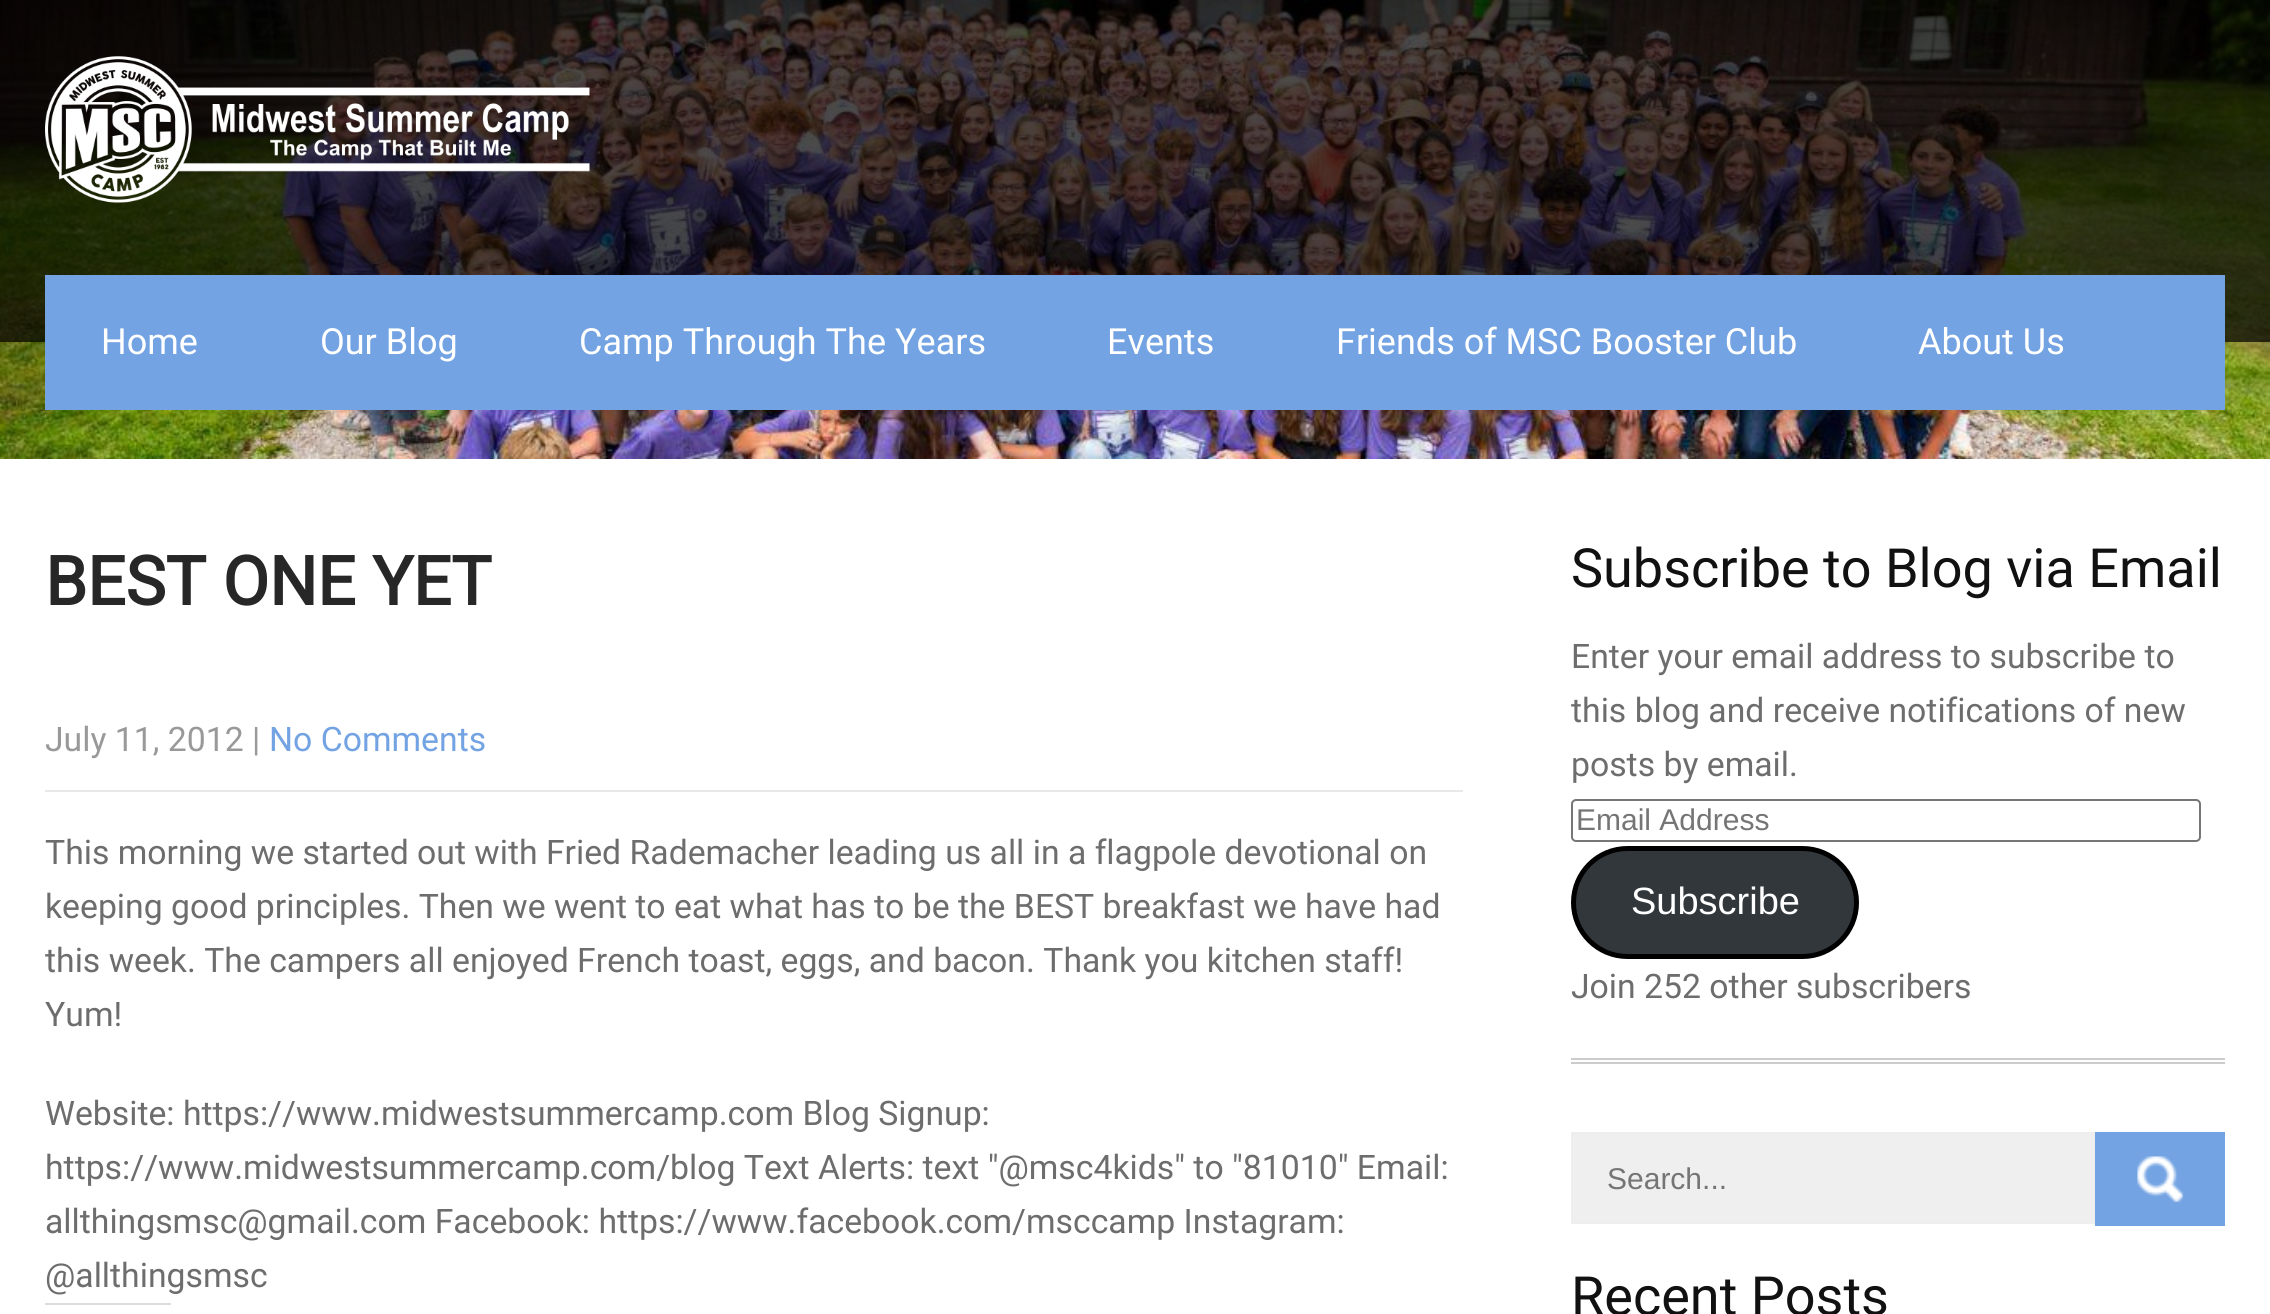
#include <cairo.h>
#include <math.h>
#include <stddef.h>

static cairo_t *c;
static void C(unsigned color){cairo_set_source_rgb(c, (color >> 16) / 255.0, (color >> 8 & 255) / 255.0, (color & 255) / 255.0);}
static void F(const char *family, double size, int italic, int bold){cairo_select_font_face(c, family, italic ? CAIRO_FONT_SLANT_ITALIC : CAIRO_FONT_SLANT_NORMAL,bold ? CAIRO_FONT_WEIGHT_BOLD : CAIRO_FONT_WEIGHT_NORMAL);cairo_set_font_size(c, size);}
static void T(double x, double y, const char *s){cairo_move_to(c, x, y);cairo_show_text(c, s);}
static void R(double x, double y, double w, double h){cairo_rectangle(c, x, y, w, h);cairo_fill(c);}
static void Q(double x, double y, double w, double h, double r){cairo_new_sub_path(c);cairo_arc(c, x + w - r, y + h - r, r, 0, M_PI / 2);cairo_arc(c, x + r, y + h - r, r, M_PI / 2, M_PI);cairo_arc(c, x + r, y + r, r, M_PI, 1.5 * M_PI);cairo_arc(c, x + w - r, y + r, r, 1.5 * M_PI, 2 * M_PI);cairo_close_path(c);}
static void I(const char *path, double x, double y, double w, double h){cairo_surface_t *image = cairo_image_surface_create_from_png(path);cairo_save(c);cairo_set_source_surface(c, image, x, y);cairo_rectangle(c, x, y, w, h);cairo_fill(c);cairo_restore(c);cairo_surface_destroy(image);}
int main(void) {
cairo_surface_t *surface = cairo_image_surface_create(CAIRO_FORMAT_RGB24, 2270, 1314);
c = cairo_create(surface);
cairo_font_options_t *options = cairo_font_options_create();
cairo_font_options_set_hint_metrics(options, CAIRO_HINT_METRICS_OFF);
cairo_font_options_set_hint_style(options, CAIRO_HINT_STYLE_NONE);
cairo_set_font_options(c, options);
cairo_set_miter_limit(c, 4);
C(0xffffff);
cairo_paint(c);
I("1.png",0,0,2270,459);
cairo_set_source_rgba(c,0,0,0,0.7);
R(0,0,2270,342);
I("2.png",45,56,545,147);
C(0x73a3e2);
R(45,275,2180,135);
F("Roboto",36,0,0);
C(0xffffff);
T(101,354,"Home");
T(320,354,"Our Blog");
T(579,354,"Camp Through The Years");
T(1107,354,"Events");
T(1336,354,"Friends of MSC Booster Club");
T(1918,354,"About Us");
F("Roboto",67.5,0,1);
C(0x272727);
T(45,605,"BEST ONE YET");
C(0xe8e8e8);
R(45,790,1418,2);
F("Roboto",33.75,0,0);
C(0x999999);
T(45,751,"July 11, 2012 |");
C(0x73a3e2);
T(269,751,"No Comments");
C(0x6e6d6d);
T(45,864,"This morning we started out with Fried Rademacher leading us all in a flagpole devotional on");
T(45,918,"keeping good principles. Then we went to eat what has to be the BEST breakfast we have had");
T(45,972,"this week. The campers all enjoyed French toast, eggs, and bacon. Thank you kitchen staff!");
T(45,1026,"Yum!");
T(45,1125,"Website: https://www.midwestsummercamp.com Blog Signup:");
T(45,1179,"https://www.midwestsummercamp.com/blog Text Alerts: text \"@msc4kids\" to \"81010\" Email:");
T(45,1233,"allthingsmsc@gmail.com Facebook: https://www.facebook.com/msccamp Instagram:");
T(45,1287,"@allthingsmsc");
C(0xdcdcde);
R(45,1303,126,2);
F("Roboto",54,0,0);
C(0x111111);
T(1571,587,"Subscribe to Blog via Email");
C(0xcccccc);
R(1571,1058,654,2);
R(1571,1062,654,2);
F("Roboto",33.75,0,0);
C(0x6e6d6d);
T(1571,668,"Enter your email address to subscribe to");
T(1571,722,"this blog and receive notifications of new");
T(1571,776,"posts by email.");
Q(1572,800,628,41,4);
C(0x767676);
cairo_stroke(c);
F("Liberation Sans",30,0,0);
C(0x757575);
T(1576,830,"Email Address");
C(0x32373c);
Q(1573.5,848.5,283,108,54);
cairo_fill_preserve(c);
C(0x000000);
cairo_set_line_width(c,5);
cairo_stroke(c);
F("Liberation Sans",38,0,0);
C(0xffffff);
T(1631,914,"Subscribe");
F("Roboto",33.75,0,0);
C(0x6e6d6d);
T(1571,998,"Join 252 other subscribers");
C(0xf0efef);
cairo_rectangle(c,1572,1133,522,90);
cairo_fill_preserve(c);
C(0xeeeeee);
cairo_set_line_width(c,2);
cairo_stroke(c);
F("Liberation Sans",30,0,0);
C(0x757575);
T(1607,1189,"Search...");
C(0x73a3e2);
R(2095,1132,130,94);
I("3.png",2137,1156,47,47);
F("Roboto",54,0,0);
C(0x111111);
T(1571,1315,"Recent Posts");
cairo_surface_write_to_png(surface, "o.png");
cairo_font_options_destroy(options);
cairo_destroy(c);
cairo_surface_destroy(surface);
return 0;
}
